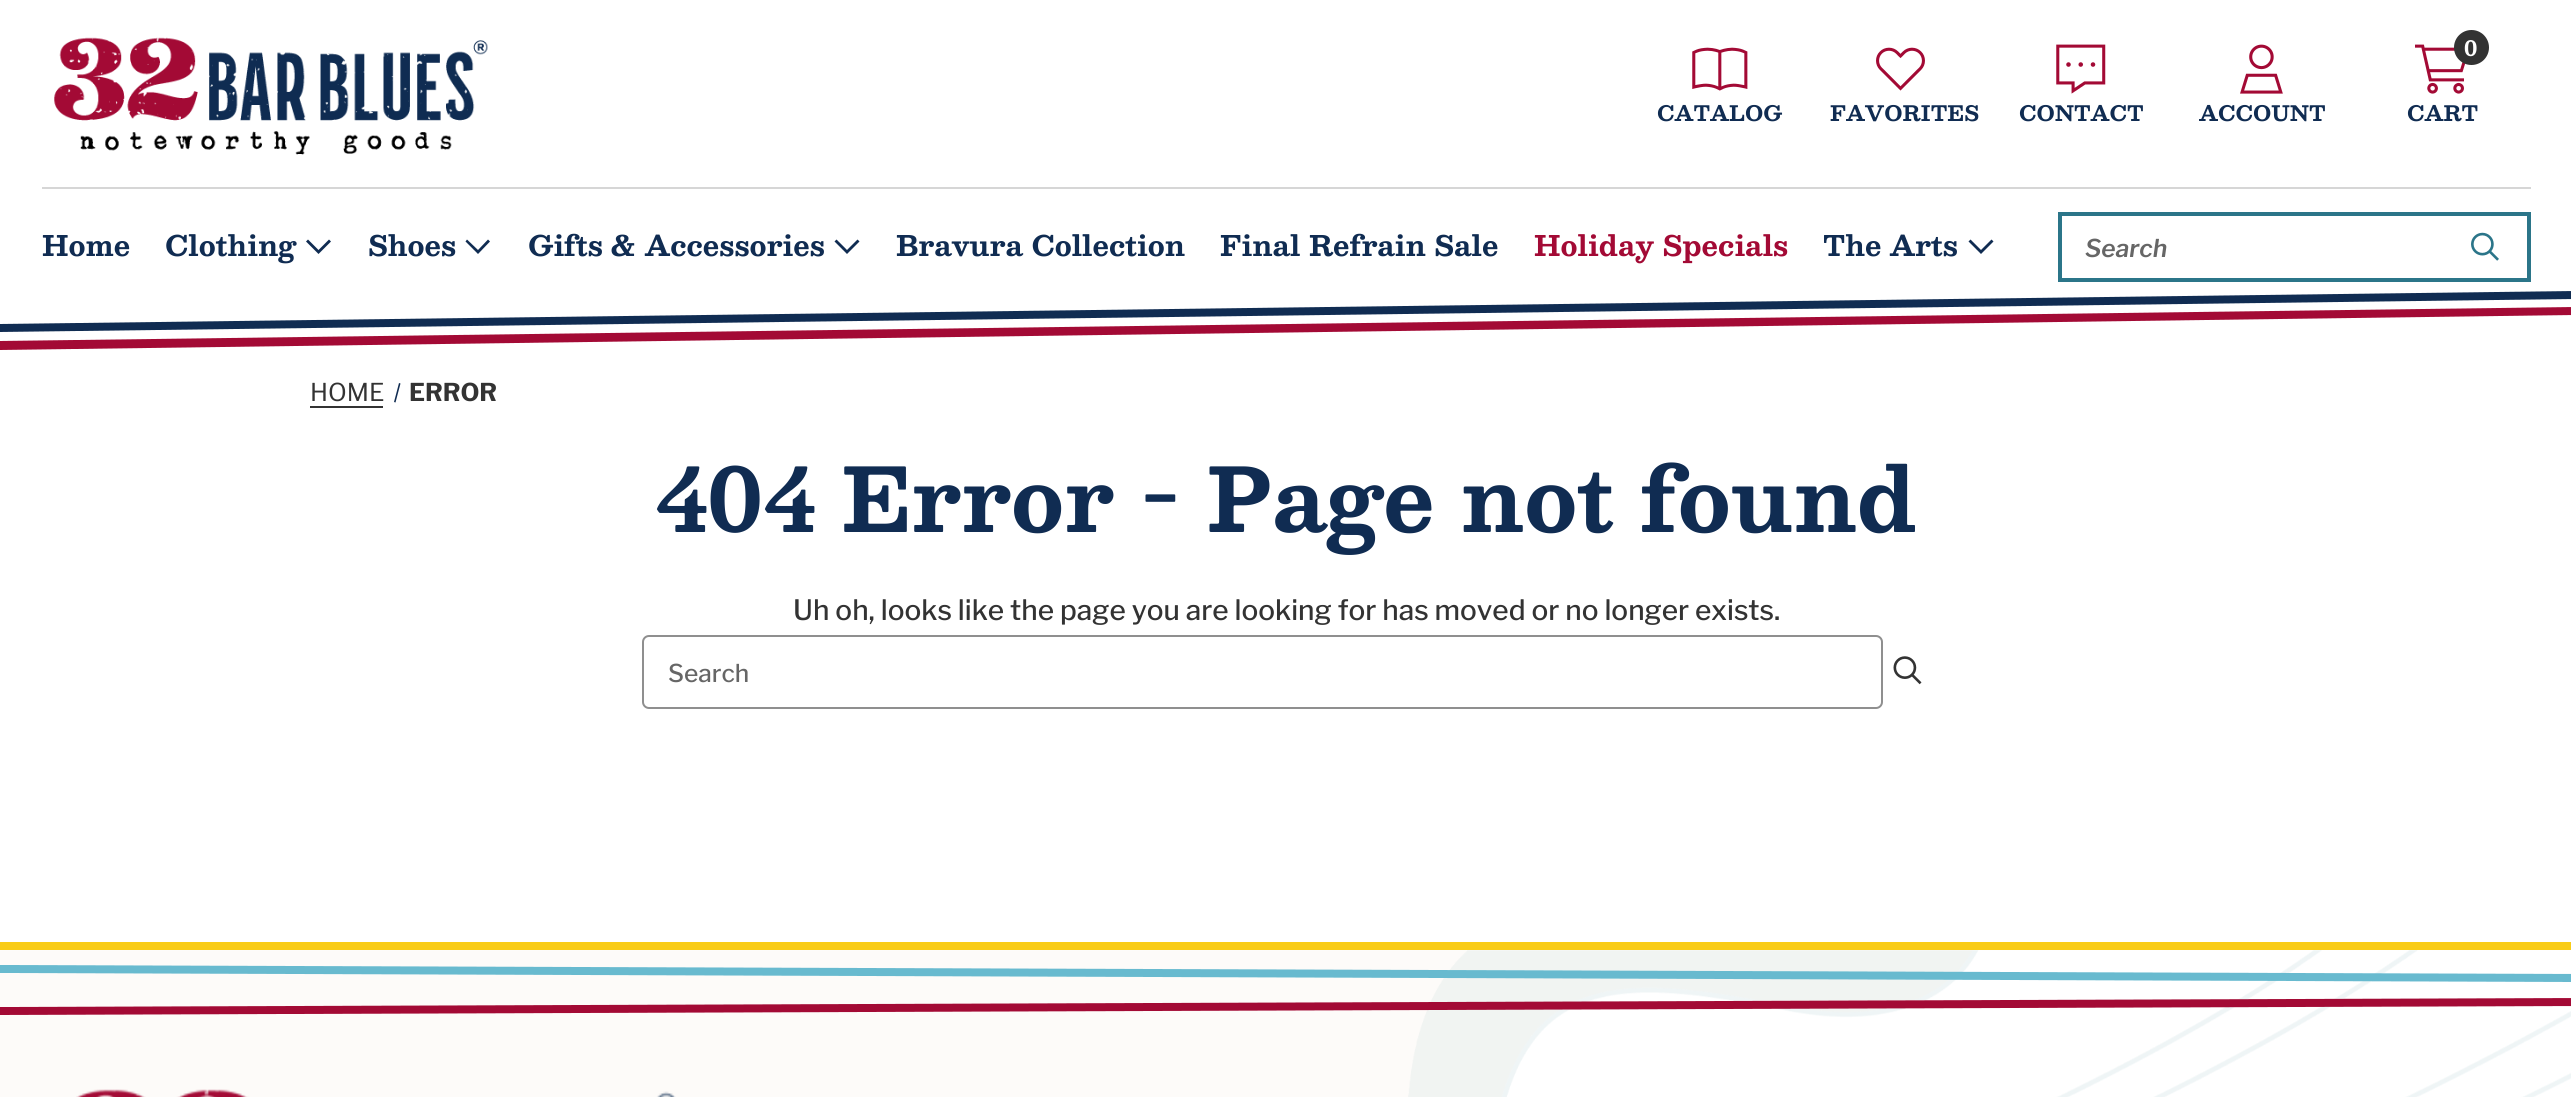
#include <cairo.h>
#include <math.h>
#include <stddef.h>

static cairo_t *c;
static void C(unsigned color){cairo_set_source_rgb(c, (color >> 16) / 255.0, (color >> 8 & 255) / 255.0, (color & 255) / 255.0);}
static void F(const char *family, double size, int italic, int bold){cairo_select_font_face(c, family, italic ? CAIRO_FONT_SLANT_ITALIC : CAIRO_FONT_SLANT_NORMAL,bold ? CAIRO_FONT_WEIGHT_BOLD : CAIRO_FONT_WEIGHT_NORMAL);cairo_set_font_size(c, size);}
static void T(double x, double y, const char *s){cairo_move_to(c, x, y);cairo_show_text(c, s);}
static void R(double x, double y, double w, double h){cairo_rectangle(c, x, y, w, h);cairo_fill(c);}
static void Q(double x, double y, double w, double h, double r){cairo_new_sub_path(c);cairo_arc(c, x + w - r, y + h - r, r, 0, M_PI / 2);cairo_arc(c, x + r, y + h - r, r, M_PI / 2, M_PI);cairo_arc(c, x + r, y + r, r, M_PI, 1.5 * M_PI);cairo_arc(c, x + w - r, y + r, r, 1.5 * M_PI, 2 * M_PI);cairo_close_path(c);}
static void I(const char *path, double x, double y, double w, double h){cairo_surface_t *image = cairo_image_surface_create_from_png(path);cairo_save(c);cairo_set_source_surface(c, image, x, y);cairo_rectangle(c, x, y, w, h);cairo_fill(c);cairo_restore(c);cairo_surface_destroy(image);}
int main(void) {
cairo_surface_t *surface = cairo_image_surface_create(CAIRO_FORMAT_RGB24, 2571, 1097);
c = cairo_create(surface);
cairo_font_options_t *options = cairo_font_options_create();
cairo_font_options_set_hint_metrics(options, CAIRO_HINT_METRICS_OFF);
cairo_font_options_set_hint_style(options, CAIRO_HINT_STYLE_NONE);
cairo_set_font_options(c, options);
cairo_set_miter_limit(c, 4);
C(0xffffff);
cairo_paint(c);
C(0xa30a35);
cairo_new_path(c);
cairo_move_to(c,0,0);
cairo_line_to(c,0,350);
cairo_line_to(c,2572,315);
cairo_line_to(c,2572,0);
cairo_close_path(c);
cairo_fill(c);
C(0xffffff);
cairo_new_path(c);
cairo_move_to(c,0,0);
cairo_line_to(c,0,341);
cairo_line_to(c,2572,307);
cairo_line_to(c,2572,0);
cairo_close_path(c);
cairo_fill(c);
C(0x102c52);
cairo_new_path(c);
cairo_move_to(c,0,0);
cairo_line_to(c,0,332);
cairo_line_to(c,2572,299);
cairo_line_to(c,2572,0);
cairo_close_path(c);
cairo_fill(c);
C(0xffffff);
cairo_new_path(c);
cairo_move_to(c,0,0);
cairo_line_to(c,0,324);
cairo_line_to(c,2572,291);
cairo_line_to(c,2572,0);
cairo_close_path(c);
cairo_fill(c);
C(0xd6d6d6);
R(42,187,2489,2);
I("1.png",54,37,434,118);
I("2.png",1692,47,56,44);
F("Besley",21,0,1);
C(0x102c52);
T(1657,121,"CATALOG");
I("3.png",1876,47,49,44);
T(1830,121,"FAVORITES");
I("4.png",2056,44,50,50);
T(2019,121,"CONTACT");
I("5.png",2240,44,43,50);
T(2199,121,"ACCOUNT");
I("6.png",2415,44,51,50);
C(0x333333);
cairo_arc(c,2471.5,47.5,17.5,0,2 * M_PI);
cairo_fill(c);
C(0xffffff);
T(2464,56,"0");
C(0x102c52);
T(2407,121,"CART");
F("Besley",28,0,1);
T(42,256,"Home");
T(165,256,"Clothing");
cairo_new_path(c);
cairo_move_to(c,318.5,254);
cairo_line_to(c,331,241.5);
cairo_line_to(c,329,239.5);
cairo_line_to(c,318.5,250);
cairo_line_to(c,308,239.5);
cairo_line_to(c,306,241.5);
cairo_close_path(c);
cairo_fill(c);
T(368,256,"Shoes");
cairo_new_path(c);
cairo_move_to(c,478,254);
cairo_line_to(c,490,241.5);
cairo_line_to(c,488,239.5);
cairo_line_to(c,478,250);
cairo_line_to(c,467,239.5);
cairo_line_to(c,465.5,241.5);
cairo_close_path(c);
cairo_fill(c);
T(528,256,"Gifts & Accessories");
cairo_new_path(c);
cairo_move_to(c,847,254);
cairo_line_to(c,859.5,241.5);
cairo_line_to(c,857.5,239.5);
cairo_line_to(c,847,250);
cairo_line_to(c,836.5,239.5);
cairo_line_to(c,834.5,241.5);
cairo_close_path(c);
cairo_fill(c);
T(896,256,"Bravura Collection");
T(1220,256,"Final Refrain Sale");
C(0xa30a35);
T(1534,256,"Holiday Specials");
C(0x102c52);
T(1823,256,"The Arts");
cairo_new_path(c);
cairo_move_to(c,1981,254);
cairo_line_to(c,1993.5,241.5);
cairo_line_to(c,1991.5,239.5);
cairo_line_to(c,1981,250);
cairo_line_to(c,1970.5,239.5);
cairo_line_to(c,1968.5,241.5);
cairo_close_path(c);
cairo_fill(c);
cairo_rectangle(c,2060,214,469,66);
C(0x2b7589);
cairo_set_line_width(c,4);
cairo_stroke(c);
F("Libre Franklin SemiBold",24.5,1,0);
C(0x666666);
T(2085,257,"Search");
I("7.png",2471,232,28,29);
F("Libre Franklin",24.5,0,0);
C(0x333333);
T(310,401,"HOME");
R(310,406,73,2);
C(0x102c52);
cairo_new_path(c);
cairo_move_to(c,399,383);
cairo_line_to(c,400.5,383.5);
cairo_line_to(c,395.5,402.5);
cairo_line_to(c,394,402);
cairo_close_path(c);
cairo_fill(c);
F("Libre Franklin",24.5,0,1);
C(0x333333);
T(409,401,"ERROR");
F("Besley",87.5,0,1);
C(0x102c52);
T(655,532,"404 Error - Page not found");
F("Libre Franklin Medium",28,0,0);
C(0x333333);
T(793,620,"Uh oh, looks like the page you are looking for has moved or no longer exists.");
Q(643,636,1239,72,6);
C(0x8f8f8f);
cairo_set_line_width(c,2);
cairo_stroke(c);
F("Libre Franklin Medium",24.5,0,0);
C(0x666666);
T(668,682,"Search");
I("8.png",1893,656,29,29);
I("9.png",0,950,2571,147);
C(0xf9cc17);
R(0,942,2571,8);
C(0x68bacf);
cairo_new_path(c);
cairo_move_to(c,0,965);
cairo_line_to(c,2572,974);
cairo_line_to(c,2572,982);
cairo_line_to(c,0,973);
cairo_close_path(c);
cairo_fill(c);
C(0xa30a35);
cairo_new_path(c);
cairo_move_to(c,0,1007);
cairo_line_to(c,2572,998);
cairo_line_to(c,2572,1006);
cairo_line_to(c,0,1015);
cairo_close_path(c);
cairo_fill(c);
I("10.png",76,1089,600,8);
cairo_surface_write_to_png(surface, "o.png");
cairo_font_options_destroy(options);
cairo_destroy(c);
cairo_surface_destroy(surface);
return 0;
}
